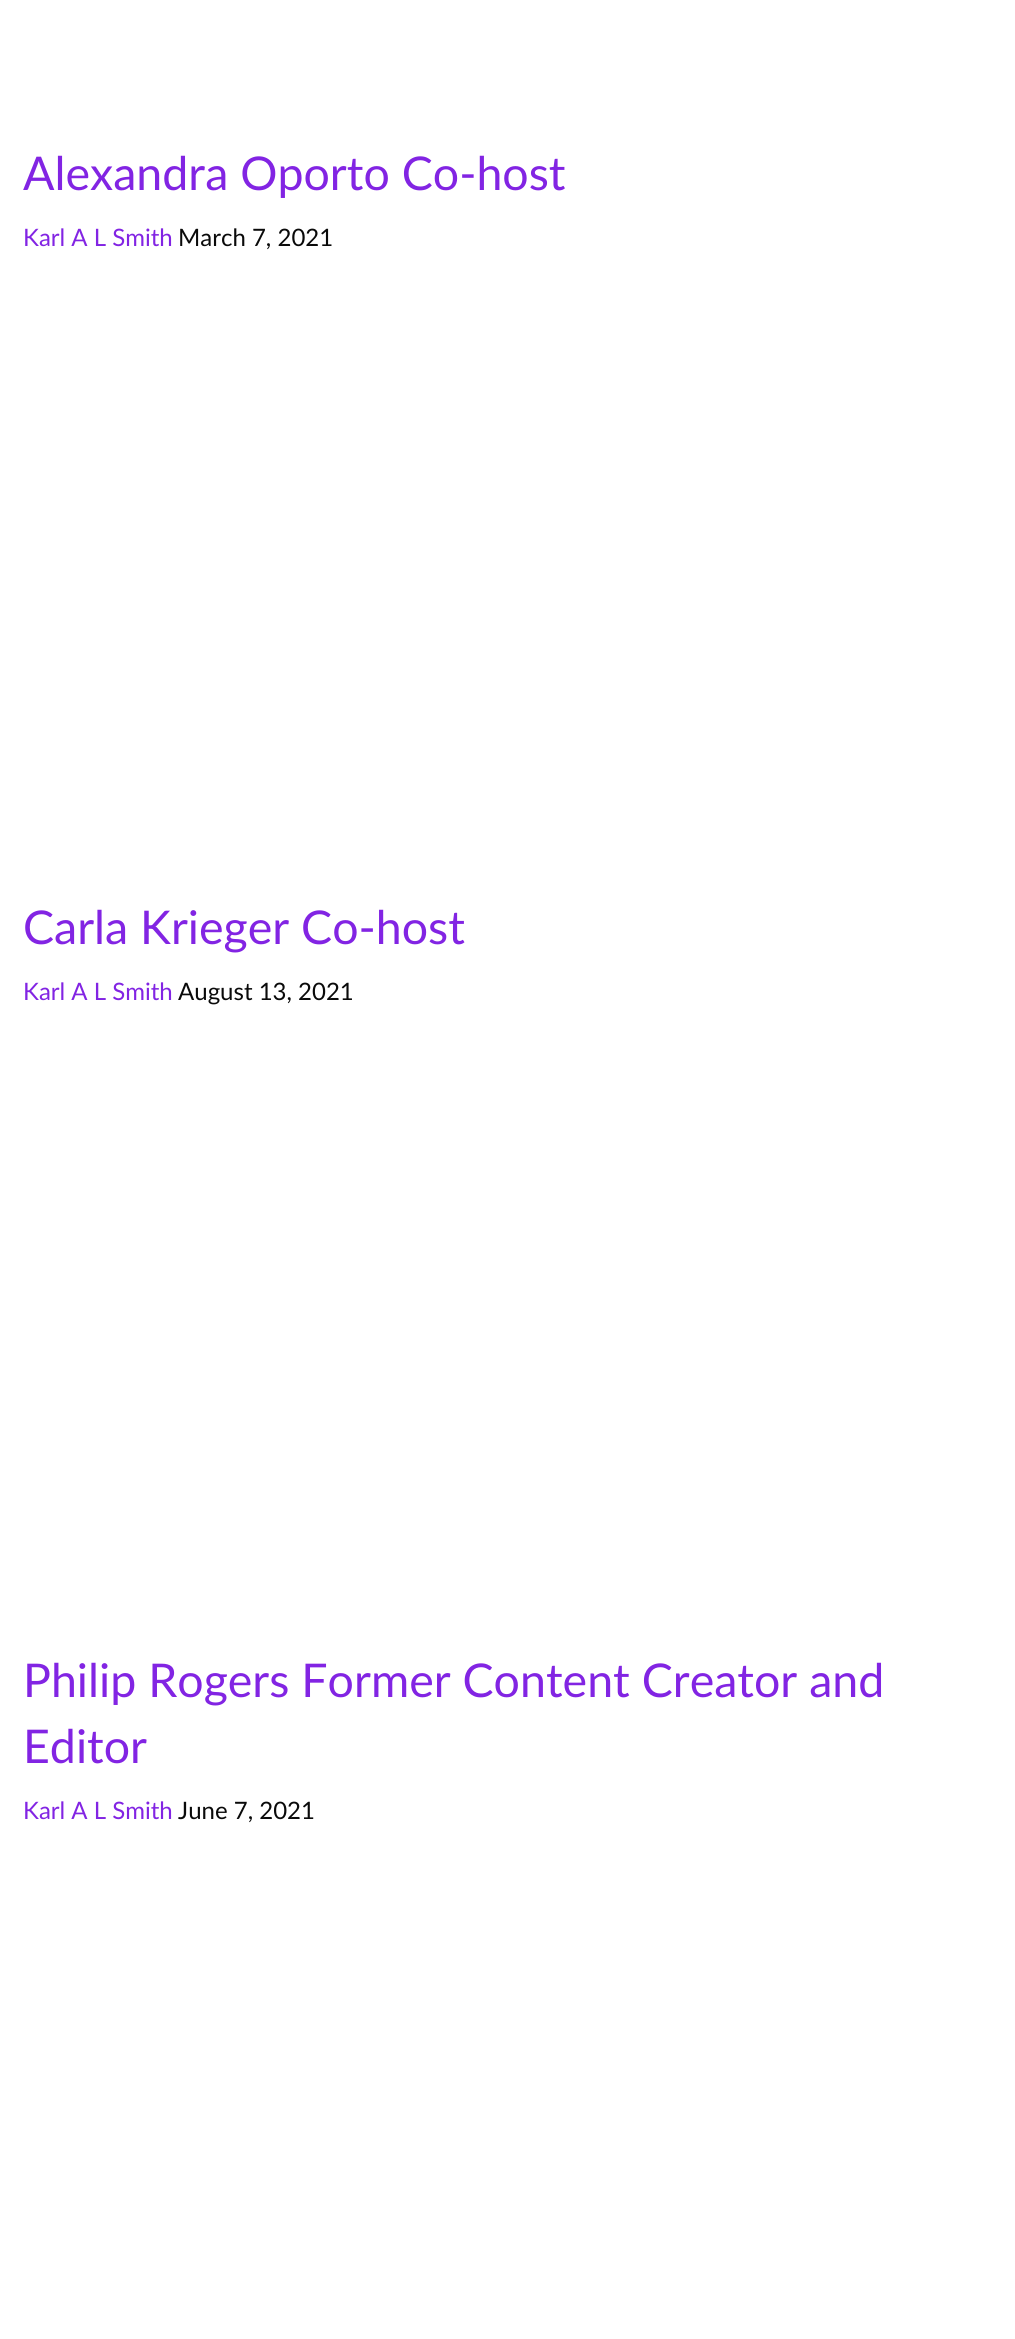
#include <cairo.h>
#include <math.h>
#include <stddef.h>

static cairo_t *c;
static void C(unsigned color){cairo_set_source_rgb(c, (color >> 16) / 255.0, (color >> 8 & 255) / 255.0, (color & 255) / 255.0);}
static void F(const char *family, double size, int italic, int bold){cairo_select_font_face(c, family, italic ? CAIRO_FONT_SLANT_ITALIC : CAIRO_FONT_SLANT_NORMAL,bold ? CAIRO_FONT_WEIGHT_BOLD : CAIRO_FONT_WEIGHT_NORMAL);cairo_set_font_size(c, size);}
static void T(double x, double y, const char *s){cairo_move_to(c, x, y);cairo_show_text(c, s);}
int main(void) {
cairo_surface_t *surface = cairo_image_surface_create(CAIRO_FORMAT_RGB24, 1015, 2339);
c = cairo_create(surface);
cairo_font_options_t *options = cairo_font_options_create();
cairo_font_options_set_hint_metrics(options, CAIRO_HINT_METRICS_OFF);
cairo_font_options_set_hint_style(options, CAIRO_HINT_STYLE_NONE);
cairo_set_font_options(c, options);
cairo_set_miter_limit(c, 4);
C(0xffffff);
cairo_paint(c);
F("Lato",46.5,0,0);
C(0x8224e3);
T(23,190,"Alexandra Oporto Co-host");
F("Lato",24,0,0);
T(23,246,"Karl A L Smith");
C(0x0a0a0a);
T(178,246,"March 7, 2021");
F("Lato",46.5,0,0);
C(0x8224e3);
T(23,944,"Carla Krieger Co-host");
F("Lato",24,0,0);
T(23,1000,"Karl A L Smith");
C(0x0a0a0a);
T(178,1000,"August 13, 2021");
F("Lato",46.5,0,0);
C(0x8224e3);
T(23,1697,"Philip Rogers Former Content Creator and");
T(23,1763,"Editor");
F("Lato",24,0,0);
T(23,1819,"Karl A L Smith");
C(0x0a0a0a);
T(178,1819,"June 7, 2021");
cairo_surface_write_to_png(surface, "o.png");
cairo_font_options_destroy(options);
cairo_destroy(c);
cairo_surface_destroy(surface);
return 0;
}
